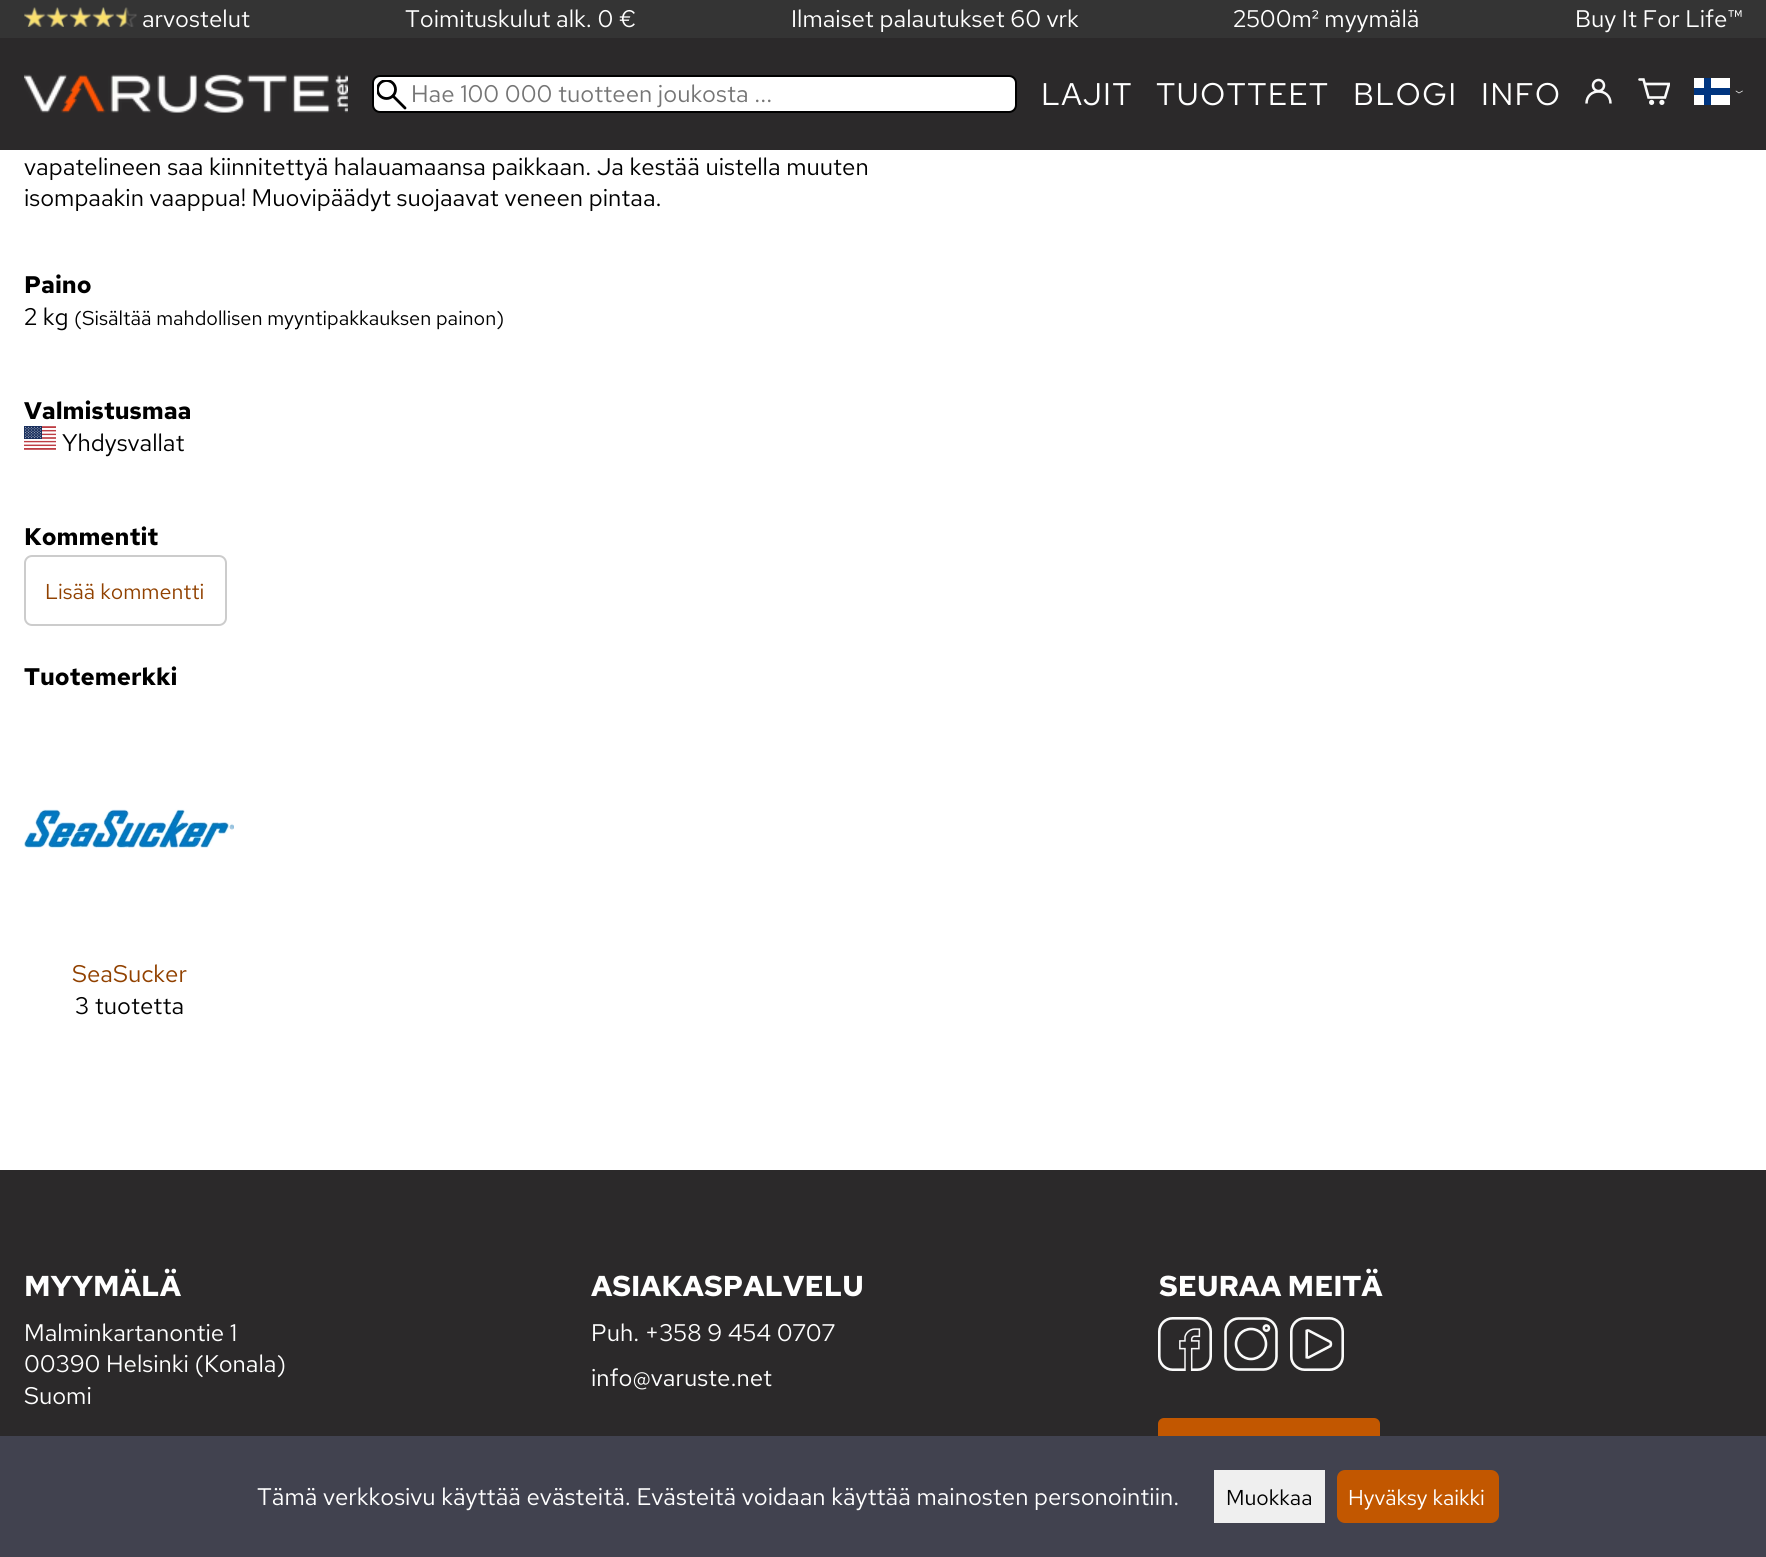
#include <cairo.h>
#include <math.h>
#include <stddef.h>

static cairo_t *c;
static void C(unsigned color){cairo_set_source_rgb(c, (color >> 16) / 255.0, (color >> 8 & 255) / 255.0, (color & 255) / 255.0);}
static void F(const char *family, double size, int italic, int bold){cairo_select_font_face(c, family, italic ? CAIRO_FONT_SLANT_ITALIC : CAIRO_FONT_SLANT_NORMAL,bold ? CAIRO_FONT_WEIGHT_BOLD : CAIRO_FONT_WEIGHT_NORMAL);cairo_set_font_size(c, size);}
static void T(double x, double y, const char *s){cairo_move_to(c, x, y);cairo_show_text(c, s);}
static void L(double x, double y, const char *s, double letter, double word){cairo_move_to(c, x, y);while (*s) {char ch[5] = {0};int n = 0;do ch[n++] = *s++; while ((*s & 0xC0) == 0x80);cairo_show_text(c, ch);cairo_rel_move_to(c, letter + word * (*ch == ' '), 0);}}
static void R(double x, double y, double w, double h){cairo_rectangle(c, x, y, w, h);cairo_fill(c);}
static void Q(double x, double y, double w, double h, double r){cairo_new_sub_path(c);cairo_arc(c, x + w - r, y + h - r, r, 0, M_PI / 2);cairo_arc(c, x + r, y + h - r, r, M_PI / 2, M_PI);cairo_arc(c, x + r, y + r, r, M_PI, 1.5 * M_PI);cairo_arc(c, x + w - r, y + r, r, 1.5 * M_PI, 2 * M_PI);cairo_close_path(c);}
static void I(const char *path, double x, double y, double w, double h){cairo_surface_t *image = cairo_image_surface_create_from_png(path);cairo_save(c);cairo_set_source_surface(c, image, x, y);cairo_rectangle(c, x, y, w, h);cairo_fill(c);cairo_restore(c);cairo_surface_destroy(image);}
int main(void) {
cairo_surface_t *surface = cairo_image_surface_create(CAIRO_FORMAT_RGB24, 1766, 1557);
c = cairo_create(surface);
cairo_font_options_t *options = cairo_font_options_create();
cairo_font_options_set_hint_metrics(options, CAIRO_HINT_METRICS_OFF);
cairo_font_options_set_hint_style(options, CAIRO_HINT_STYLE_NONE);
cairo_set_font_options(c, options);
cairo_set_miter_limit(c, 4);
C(0xffffff);
cairo_paint(c);
C(0x343434);
R(0,0,1766,38);
I("1.png",24,7,113,20);
F("Red Hat Text",24,0,0);
C(0xffffff);
T(142,27,"arvostelut");
T(405,27,"Toimituskulut alk. 0 €");
T(791,27,"Ilmaiset palautukset 60 vrk");
T(1233,27,"2500m² myymälä");
T(1575,27,"Buy It For Life™");
C(0x2b292a);
R(0,38,1766,112);
I("2.png",24,74,324,39);
C(0xffffff);
Q(373,76,643,36,7);
cairo_fill_preserve(c);
C(0x000000);
cairo_stroke(c);
cairo_new_path(c);
cairo_move_to(c,405,108);
cairo_line_to(c,393,96);
cairo_set_line_width(c,2.8);
cairo_set_line_cap(c,CAIRO_LINE_CAP_ROUND);
cairo_stroke(c);
cairo_save(c);
cairo_rectangle(c,377,80,30,30);
cairo_clip(c);
cairo_arc(c,386.5,89.5,9,0,2 * M_PI);
cairo_set_line_cap(c,CAIRO_LINE_CAP_BUTT);
cairo_stroke(c);
cairo_restore(c);
C(0x757575);
T(411,102,"Hae 100 000 tuotteen joukosta ...");
F("Red Hat Text",31.25,0,0);
C(0xffffff);
L(1041,105,"LAJIT",1.25,0);
L(1156,105,"TUOTTEET",1.25,0);
L(1353,105,"BLOGI",1.25,0);
L(1481,105,"INFO",1.25,0);
cairo_new_path(c);
cairo_arc(c,1598.5,85.5,5.5,0,2 * M_PI);
C(0xfafafa);
cairo_set_line_width(c,2.5);
cairo_set_line_cap(c,CAIRO_LINE_CAP_BUTT);
cairo_stroke(c);
cairo_new_path(c);
cairo_move_to(c,1586.5,103.5);
cairo_curve_to(c,1586.5,87.5,1610.5,87.5,1610.5,103.5);
cairo_stroke(c);
cairo_save(c);
cairo_rectangle(c,1638,78,32,27);
cairo_clip(c);
cairo_new_path(c);
cairo_move_to(c,1645,84);
cairo_line_to(c,1669,84);
cairo_line_to(c,1665,97.5);
cairo_line_to(c,1648.5,97.5);
cairo_line_to(c,1643.5,79.5);
cairo_line_to(c,1639.5,79.5);
cairo_set_line_width(c,2.6);
cairo_set_line_cap(c,CAIRO_LINE_CAP_ROUND);
cairo_stroke(c);
cairo_restore(c);
cairo_arc(c,1651.6,102.4,1.3,0,2 * M_PI);
cairo_set_line_width(c,2.6);
cairo_stroke(c);
cairo_arc(c,1661.9,102.4,1.3,0,2 * M_PI);
cairo_stroke(c);
C(0xffffff);
R(1694,78,36,27);
C(0x003580);
R(1694,88,36,7);
R(1704,78,7,27);
cairo_new_path(c);
cairo_move_to(c,1736,91);
cairo_line_to(c,1739,93);
cairo_line_to(c,1742.5,91);
C(0xfafafa);
cairo_set_line_width(c,.7);
cairo_set_line_cap(c,CAIRO_LINE_CAP_ROUND);
cairo_stroke(c);
F("Red Hat Text",24,0,0);
C(0x000000);
T(24,175,"vapatelineen saa kiinnitettyä halauamaansa paikkaan. Ja kestää uistella muuten");
T(24,206,"isompaakin vaappua! Muovipäädyt suojaavat veneen pintaa.");
F("Red Hat Text",24,0,1);
T(24,293,"Paino");
F("Red Hat Text",24,0,0);
T(24,325,"2 kg");
F("Red Hat Text",20,0,0);
T(74,325,"(Sisältää mahdollisen myyntipakkauksen painon)");
F("Red Hat Text",24,0,1);
T(24,419,"Valmistusmaa");
I("3.png",24,426,32,24);
F("Red Hat Text",24,0,0);
T(62,451,"Yhdysvallat");
F("Red Hat Text",24,0,1);
T(24,545,"Kommentit");
Q(25,556,201,69,7);
C(0xcccccc);
cairo_set_line_width(c,2);
cairo_set_line_cap(c,CAIRO_LINE_CAP_BUTT);
cairo_stroke(c);
F("Red Hat Text",21.5,0,0);
C(0x914100);
T(45,599,"Lisää kommentti");
F("Red Hat Text",24,0,1);
C(0x000000);
T(24,685,"Tuotemerkki");
I("4.png",24,809,210,39);
F("Red Hat Text",24,0,0);
C(0x914100);
T(72,982,"SeaSucker");
C(0x000000);
T(75,1014,"3 tuotetta");
C(0x2b292a);
R(0,1170,1766,266);
F("Red Hat Text",28.75,0,1);
C(0xffffff);
T(24,1296,"MYYMÄLÄ");
F("Red Hat Text",24,0,0);
T(24,1341,"Malminkartanontie 1");
T(24,1372,"00390 Helsinki (Konala)");
T(24,1404,"Suomi");
F("Red Hat Text",28.75,0,1);
T(591,1296,"ASIAKASPALVELU");
F("Red Hat Text",24,0,0);
T(591,1341,"Puh. +358 9 454 0707");
T(591,1386,"info@varuste.net");
F("Red Hat Text",28.75,0,1);
T(1159,1296,"SEURAA MEITÄ");
I("5.png",1158,1317,54,54);
cairo_new_path(c);
cairo_move_to(c,1263.5,1369.5);
cairo_line_to(c,1238.5,1369.5);
cairo_curve_to(c,1231.5,1369.5,1225.5,1363.5,1225.5,1356.5);
cairo_line_to(c,1225.5,1331.5);
cairo_curve_to(c,1225.5,1324.5,1231.5,1318.5,1238.5,1318.5);
cairo_line_to(c,1263.5,1318.5);
cairo_curve_to(c,1270.5,1318.5,1276.5,1324.5,1276.5,1331.5);
cairo_line_to(c,1276.5,1356.5);
cairo_curve_to(c,1276.5,1363.5,1270.5,1369.5,1263.5,1369.5);
C(0xfafafa);
cairo_set_line_width(c,2.6);
cairo_stroke(c);
cairo_arc(c,1251,1344,15,0,2 * M_PI);
cairo_stroke(c);
cairo_arc(c,1266.4,1328.1,2.6,0,2 * M_PI);
cairo_stroke(c);
I("6.png",1290,1317,54,54);
C(0xc25700);
Q(1158,1418,222,79,6);
cairo_fill(c);
C(0x41424f);
R(0,1436,1766,121);
F("Red Hat Text",24,0,0);
C(0xffffff);
T(257,1505,"Tämä verkkosivu käyttää evästeitä. Evästeitä voidaan käyttää mainosten personointiin.");
C(0xefefef);
R(1214,1470,111,53);
F("Red Hat Text",21.5,0,0);
C(0x000000);
T(1226,1505,"Muokkaa");
C(0xc25700);
Q(1337,1470,162,53,8);
cairo_fill(c);
C(0xffffff);
T(1348,1505,"Hyväksy kaikki");
cairo_surface_write_to_png(surface, "o.png");
cairo_font_options_destroy(options);
cairo_destroy(c);
cairo_surface_destroy(surface);
return 0;
}
